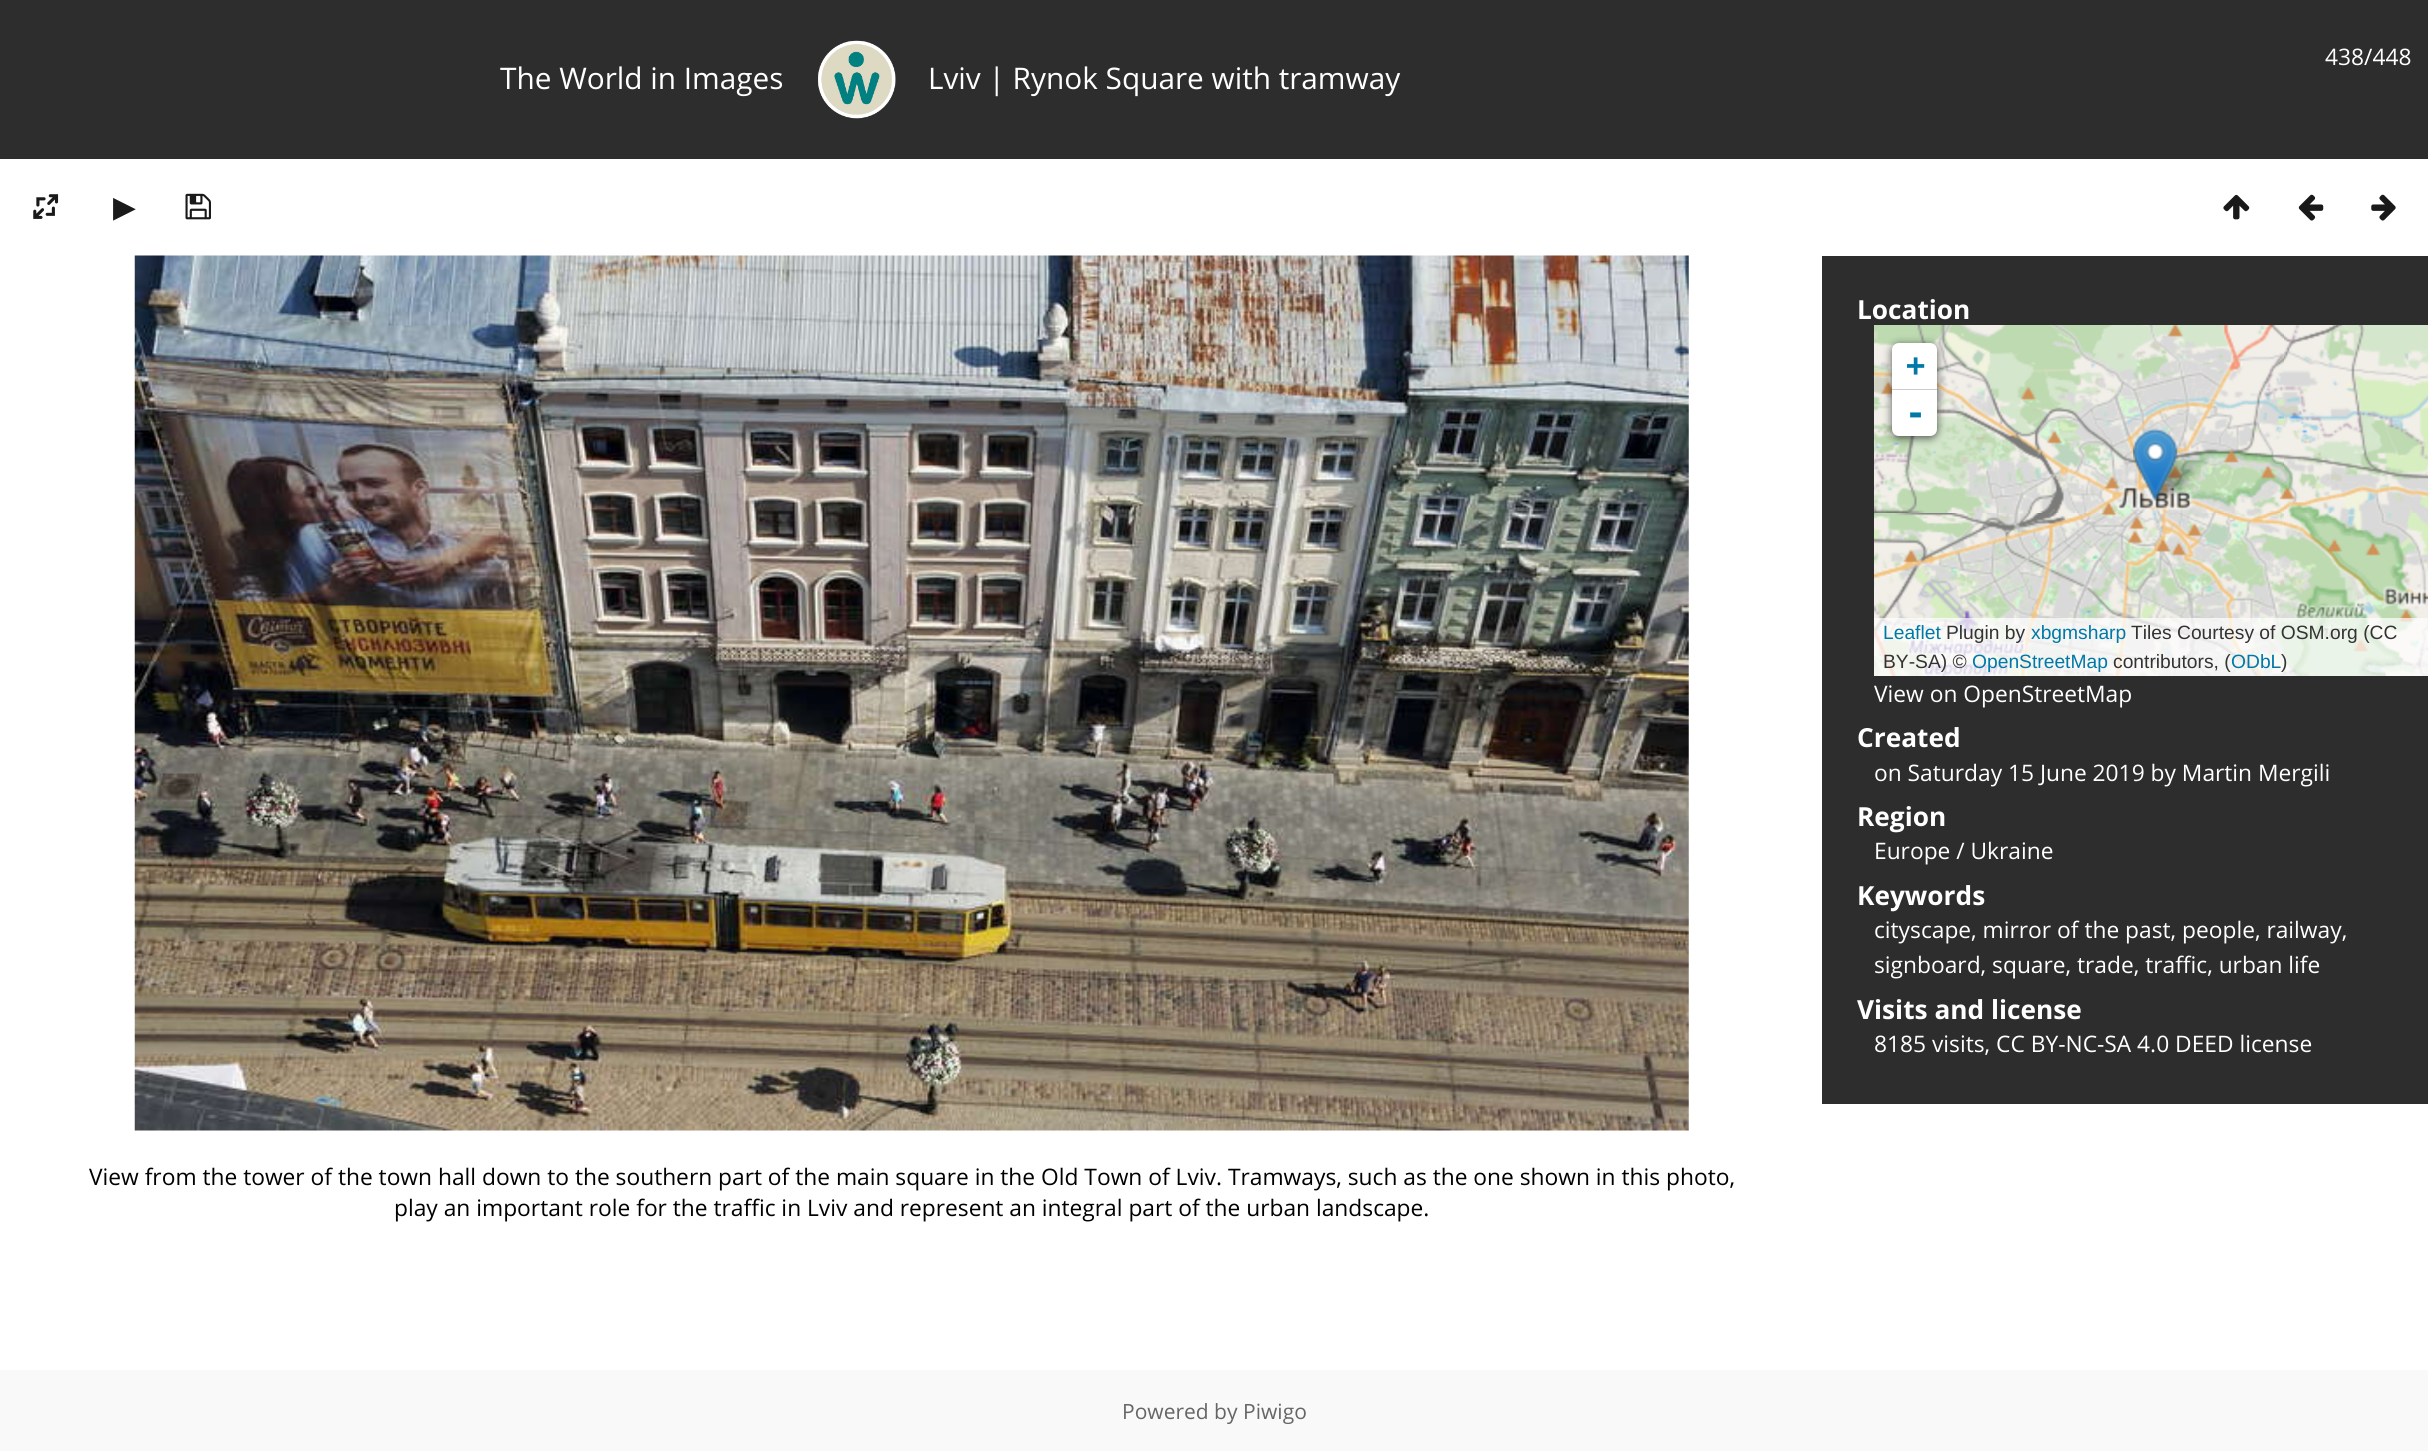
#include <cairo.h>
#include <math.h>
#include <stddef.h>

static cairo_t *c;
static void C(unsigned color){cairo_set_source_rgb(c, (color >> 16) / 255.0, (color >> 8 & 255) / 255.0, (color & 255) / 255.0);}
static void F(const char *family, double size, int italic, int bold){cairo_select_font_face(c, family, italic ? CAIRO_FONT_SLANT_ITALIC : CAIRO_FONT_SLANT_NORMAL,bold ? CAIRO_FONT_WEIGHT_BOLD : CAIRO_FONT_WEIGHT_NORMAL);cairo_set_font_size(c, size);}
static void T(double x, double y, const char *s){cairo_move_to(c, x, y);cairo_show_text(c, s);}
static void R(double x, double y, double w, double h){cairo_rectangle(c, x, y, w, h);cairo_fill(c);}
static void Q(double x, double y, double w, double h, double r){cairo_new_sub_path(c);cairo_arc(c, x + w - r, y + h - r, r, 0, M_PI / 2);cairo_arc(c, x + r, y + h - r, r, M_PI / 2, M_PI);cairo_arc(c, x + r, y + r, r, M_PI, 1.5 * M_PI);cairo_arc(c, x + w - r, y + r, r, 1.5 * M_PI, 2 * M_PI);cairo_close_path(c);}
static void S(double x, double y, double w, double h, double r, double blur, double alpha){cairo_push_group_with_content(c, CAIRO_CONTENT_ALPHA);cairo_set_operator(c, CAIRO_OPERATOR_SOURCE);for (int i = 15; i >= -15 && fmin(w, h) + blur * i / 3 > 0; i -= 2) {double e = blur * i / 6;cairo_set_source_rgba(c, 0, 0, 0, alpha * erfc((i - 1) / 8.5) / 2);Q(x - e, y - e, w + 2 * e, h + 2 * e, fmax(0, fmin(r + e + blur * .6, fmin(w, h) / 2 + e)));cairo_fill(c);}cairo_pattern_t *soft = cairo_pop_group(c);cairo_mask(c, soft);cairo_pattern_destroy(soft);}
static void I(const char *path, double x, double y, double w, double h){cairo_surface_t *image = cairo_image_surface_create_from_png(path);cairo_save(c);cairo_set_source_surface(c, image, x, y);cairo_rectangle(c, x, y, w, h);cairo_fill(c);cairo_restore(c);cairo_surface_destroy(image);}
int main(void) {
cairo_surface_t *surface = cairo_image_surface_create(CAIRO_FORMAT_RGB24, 2428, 1451);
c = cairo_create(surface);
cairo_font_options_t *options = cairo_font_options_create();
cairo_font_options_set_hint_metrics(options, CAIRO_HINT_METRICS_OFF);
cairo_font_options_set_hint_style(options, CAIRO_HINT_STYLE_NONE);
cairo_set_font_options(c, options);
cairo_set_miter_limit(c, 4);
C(0xffffff);
cairo_paint(c);
C(0x2d2d2d);
R(0,0,2428,159);
F("Open Sans",22.75,0,0);
C(0xffffff);
T(2325,65,"438/448");
F("Open Sans",29.75,0,0);
T(500,89,"The World in Images");
I("1.png",818,40,78,79);
T(928,89,"Lviv | Rynok Square with tramway");
I("2.png",33,194,26,25);
F("DejaVu Sans",29.75,0,0);
C(0x1a1a1a);
T(113,217,"▶");
I("3.png",185,193,26,27);
I("4.png",2223,194,27,26);
I("5.png",2298,194,26,27);
I("6.png",2371,194,25,27);
C(0x2d2d2d);
R(1822,256,606,848);
F("Open Sans",26.25,0,1);
C(0xffffff);
T(1857,319,"Location");
I("7.png",1874,325,410,188);
I("8.png",2284,325,144,188);
I("9.png",1874,513,410,163);
I("10.png",2284,513,144,163);
I("12.png",2149,451,52,50);
I("11.png",2133,428,45,73);
C(0x000000);
S(1892,345,45,93,7,4.5,.65);
C(0xffffff);
cairo_new_path(c);
cairo_move_to(c,1899,343);
cairo_line_to(c,1930,343);
cairo_curve_to(c,1934,343,1937,346,1937,350);
cairo_line_to(c,1937,390);
cairo_line_to(c,1892,390);
cairo_line_to(c,1892,350);
cairo_curve_to(c,1892,346,1895,343,1899,343);
cairo_close_path(c);
cairo_fill(c);
C(0xcccccc);
R(1892,389,45,1);
F("DejaVu Sans Mono",32,0,1);
C(0x0078a8);
T(1906,376,"+");
C(0xffffff);
cairo_new_path(c);
cairo_move_to(c,1892,390);
cairo_line_to(c,1937,390);
cairo_line_to(c,1937,429);
cairo_curve_to(c,1937,433,1934,436,1930,436);
cairo_line_to(c,1899,436);
cairo_curve_to(c,1895,436,1892,433,1892,429);
cairo_close_path(c);
cairo_fill(c);
F("DejaVu Sans Mono",35,0,1);
C(0x0078a8);
T(1905,425,"-");
cairo_set_source_rgba(c,1,1,1,0.7);
R(1874,618,554,58);
F("Liberation Sans",19.25,0,0);
C(0x0078a8);
T(1883,639,"Leaflet");
C(0x333333);
T(1946,639,"Plugin by");
C(0x0078a8);
T(2031,639,"xbgmsharp");
C(0x333333);
T(2131,639,"Tiles Courtesy of OSM.org (CC");
T(1883,668,"BY-SA) ©");
C(0x0078a8);
T(1972,668,"OpenStreetMap");
C(0x333333);
T(2113,668,"contributors, (");
C(0x0078a8);
T(2231,668,"ODbL");
C(0x333333);
T(2281,668,")");
F("Open Sans",22.75,0,0);
C(0xffffff);
T(1874,702,"View on OpenStreetMap");
F("Open Sans",26.25,0,1);
T(1857,747,"Created");
F("Open Sans",22.75,0,0);
T(1874,781,"on Saturday 15 June 2019 by Martin Mergili");
F("Open Sans",26.25,0,1);
T(1857,826,"Region");
F("Open Sans",22.75,0,0);
T(1874,859,"Europe / Ukraine");
F("Open Sans",26.25,0,1);
T(1857,905,"Keywords");
F("Open Sans",22.75,0,0);
T(1874,938,"cityscape, mirror of the past, people, railway,");
T(1874,973,"signboard, square, trade, traffic, urban life");
F("Open Sans",26.25,0,1);
T(1857,1019,"Visits and license");
F("Open Sans",22.75,0,0);
T(1874,1052,"8185 visits, CC BY-NC-SA 4.0 DEED license");
I("13.png",134,255,1555,876);
C(0x000000);
T(89,1185,"View from the tower of the town hall down to the southern part of the main square in the Old Town of Lviv. Tramways, such as the one shown in this photo,");
T(394,1216,"play an important role for the traffic in Lviv and represent an integral part of the urban landscape.");
C(0xf9f9f9);
R(0,1370,2428,81);
F("Open Sans",21,0,0);
C(0x666666);
T(1122,1419,"Powered by Piwigo");
cairo_surface_write_to_png(surface, "o.png");
cairo_font_options_destroy(options);
cairo_destroy(c);
cairo_surface_destroy(surface);
return 0;
}
